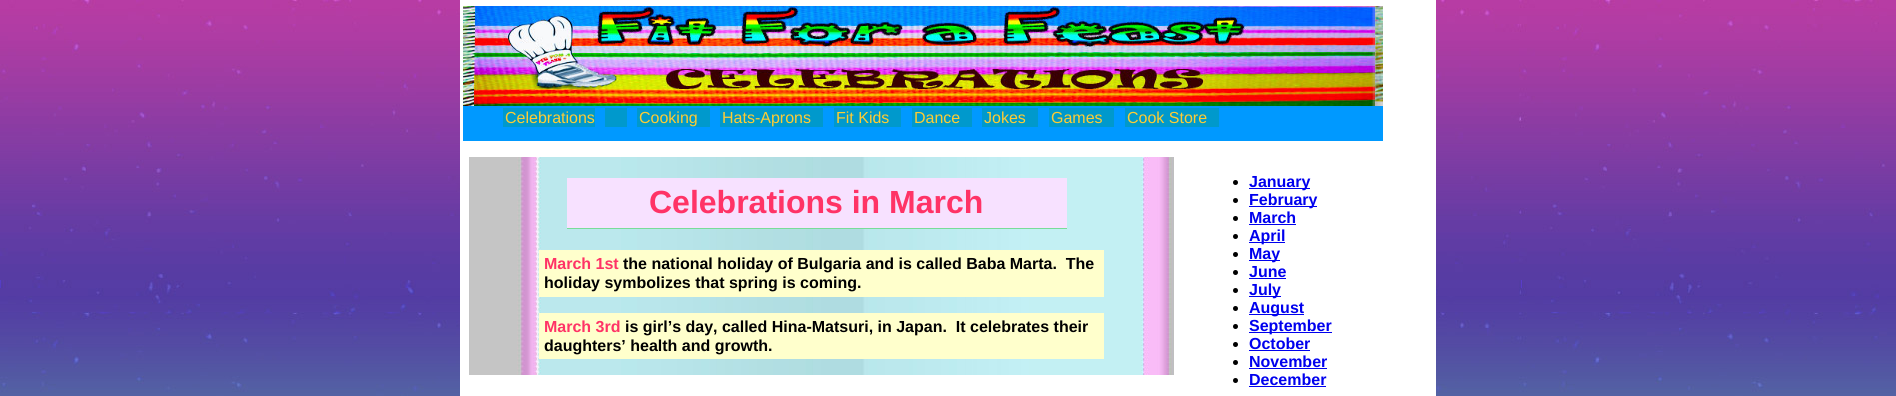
#include <cairo.h>
#include <math.h>
#include <stddef.h>

static cairo_t *c;
static void C(unsigned color){cairo_set_source_rgb(c, (color >> 16) / 255.0, (color >> 8 & 255) / 255.0, (color & 255) / 255.0);}
static void F(const char *family, double size, int italic, int bold){cairo_select_font_face(c, family, italic ? CAIRO_FONT_SLANT_ITALIC : CAIRO_FONT_SLANT_NORMAL,bold ? CAIRO_FONT_WEIGHT_BOLD : CAIRO_FONT_WEIGHT_NORMAL);cairo_set_font_size(c, size);}
static void T(double x, double y, const char *s){cairo_move_to(c, x, y);cairo_show_text(c, s);}
static void R(double x, double y, double w, double h){cairo_rectangle(c, x, y, w, h);cairo_fill(c);}
static void I(const char *path, double x, double y, double w, double h){cairo_surface_t *image = cairo_image_surface_create_from_png(path);cairo_save(c);cairo_set_source_surface(c, image, x, y);cairo_rectangle(c, x, y, w, h);cairo_fill(c);cairo_restore(c);cairo_surface_destroy(image);}
int main(void) {
cairo_surface_t *surface = cairo_image_surface_create(CAIRO_FORMAT_RGB24, 1896, 396);
c = cairo_create(surface);
cairo_font_options_t *options = cairo_font_options_create();
cairo_font_options_set_hint_metrics(options, CAIRO_HINT_METRICS_OFF);
cairo_font_options_set_hint_style(options, CAIRO_HINT_STYLE_NONE);
cairo_set_font_options(c, options);
cairo_set_miter_limit(c, 4);
C(0xffffff);
cairo_paint(c);
I("1.png",0,0,1896,396);
C(0xffffff);
R(460,0,976,396);
I("2.png",463,6,920,100);
C(0x0099ff);
R(463,106,920,35);
C(0x0099cc);
R(503,108,92,19);
F("Liberation Sans",16,0,0);
C(0xffcc33);
T(505,123,"Celebrations");
C(0x0099cc);
R(605,108,22,19);
R(637,108,73,19);
C(0xffcc33);
T(639,123,"Cooking");
C(0x0099cc);
R(720,108,103,19);
C(0xffcc33);
T(722,123,"Hats-Aprons");
C(0x0099cc);
R(834,108,67,19);
C(0xffcc33);
T(836,123,"Fit Kids");
C(0x0099cc);
R(912,108,60,19);
C(0xffcc33);
T(914,123,"Dance");
C(0x0099cc);
R(982,108,56,19);
C(0xffcc33);
T(984,123,"Jokes");
C(0x0099cc);
R(1049,108,65,19);
C(0xffcc33);
T(1051,123,"Games");
C(0x0099cc);
R(1125,108,94,19);
C(0xffcc33);
T(1127,123,"Cook Store");
I("3.png",469,157,705,218);
C(0xf7e1ff);
R(567,178,500,50);
C(0x79dc99);
R(567,228,500,1);
F("Liberation Sans",32,0,1);
C(0xff3366);
T(649,213,"Celebrations in March");
C(0xffffcc);
R(539,250,565,47);
F("Liberation Sans",16,0,1);
C(0xff3366);
T(544,269,"March 1st");
C(0x000000);
T(623,269,"the national holiday of Bulgaria and is called Baba Marta.  The");
T(544,288,"holiday symbolizes that spring is coming.");
C(0xffffcc);
R(539,313,565,46);
C(0xff3366);
T(544,332,"March 3rd");
C(0x000000);
T(625,332,"is girl’s day, called Hina-Matsuri, in Japan.  It celebrates their");
T(544,351,"daughters’ health and growth.");
cairo_new_path(c);
cairo_arc(c,1235.5,182.5,2.5,0,2 * M_PI);
cairo_fill(c);
C(0x0000ee);
R(1249,188,61,1);
T(1249,187,"January");
C(0x000000);
cairo_new_path(c);
cairo_arc(c,1235.5,200.5,2.5,0,2 * M_PI);
cairo_fill(c);
C(0x0000ee);
R(1249,206,68,1);
T(1249,205,"February");
C(0x000000);
cairo_new_path(c);
cairo_arc(c,1235.5,218.5,2.5,0,2 * M_PI);
cairo_fill(c);
C(0x0000ee);
T(1249,223,"March");
R(1249,224,47,1);
C(0x000000);
cairo_new_path(c);
cairo_arc(c,1235.5,236.5,2.5,0,2 * M_PI);
cairo_fill(c);
C(0x0000ee);
R(1249,242,36,1);
T(1249,241,"April");
C(0x000000);
cairo_new_path(c);
cairo_arc(c,1235.5,254.5,2.5,0,2 * M_PI);
cairo_fill(c);
C(0x0000ee);
R(1249,260,31,1);
T(1249,259,"May");
C(0x000000);
cairo_new_path(c);
cairo_arc(c,1235.5,272.5,2.5,0,2 * M_PI);
cairo_fill(c);
C(0x0000ee);
T(1249,277,"June");
R(1249,278,37,1);
C(0x000000);
cairo_new_path(c);
cairo_arc(c,1235.5,290.5,2.5,0,2 * M_PI);
cairo_fill(c);
C(0x0000ee);
R(1249,296,32,1);
T(1249,295,"July");
C(0x000000);
cairo_new_path(c);
cairo_arc(c,1235.5,308.5,2.5,0,2 * M_PI);
cairo_fill(c);
C(0x0000ee);
R(1249,314,55,1);
T(1249,313,"August");
C(0x000000);
cairo_new_path(c);
cairo_arc(c,1235.5,326.5,2.5,0,2 * M_PI);
cairo_fill(c);
C(0x0000ee);
R(1249,332,83,1);
T(1249,331,"September");
C(0x000000);
cairo_new_path(c);
cairo_arc(c,1235.5,344.5,2.5,0,2 * M_PI);
cairo_fill(c);
C(0x0000ee);
T(1249,349,"October");
R(1249,350,61,1);
C(0x000000);
cairo_new_path(c);
cairo_arc(c,1235.5,362.5,2.5,0,2 * M_PI);
cairo_fill(c);
C(0x0000ee);
T(1249,367,"November");
R(1249,368,78,1);
C(0x000000);
cairo_new_path(c);
cairo_arc(c,1235.5,380.5,2.5,0,2 * M_PI);
cairo_fill(c);
C(0x0000ee);
T(1249,385,"December");
R(1249,386,77,1);
cairo_surface_write_to_png(surface, "o.png");
cairo_font_options_destroy(options);
cairo_destroy(c);
cairo_surface_destroy(surface);
return 0;
}
